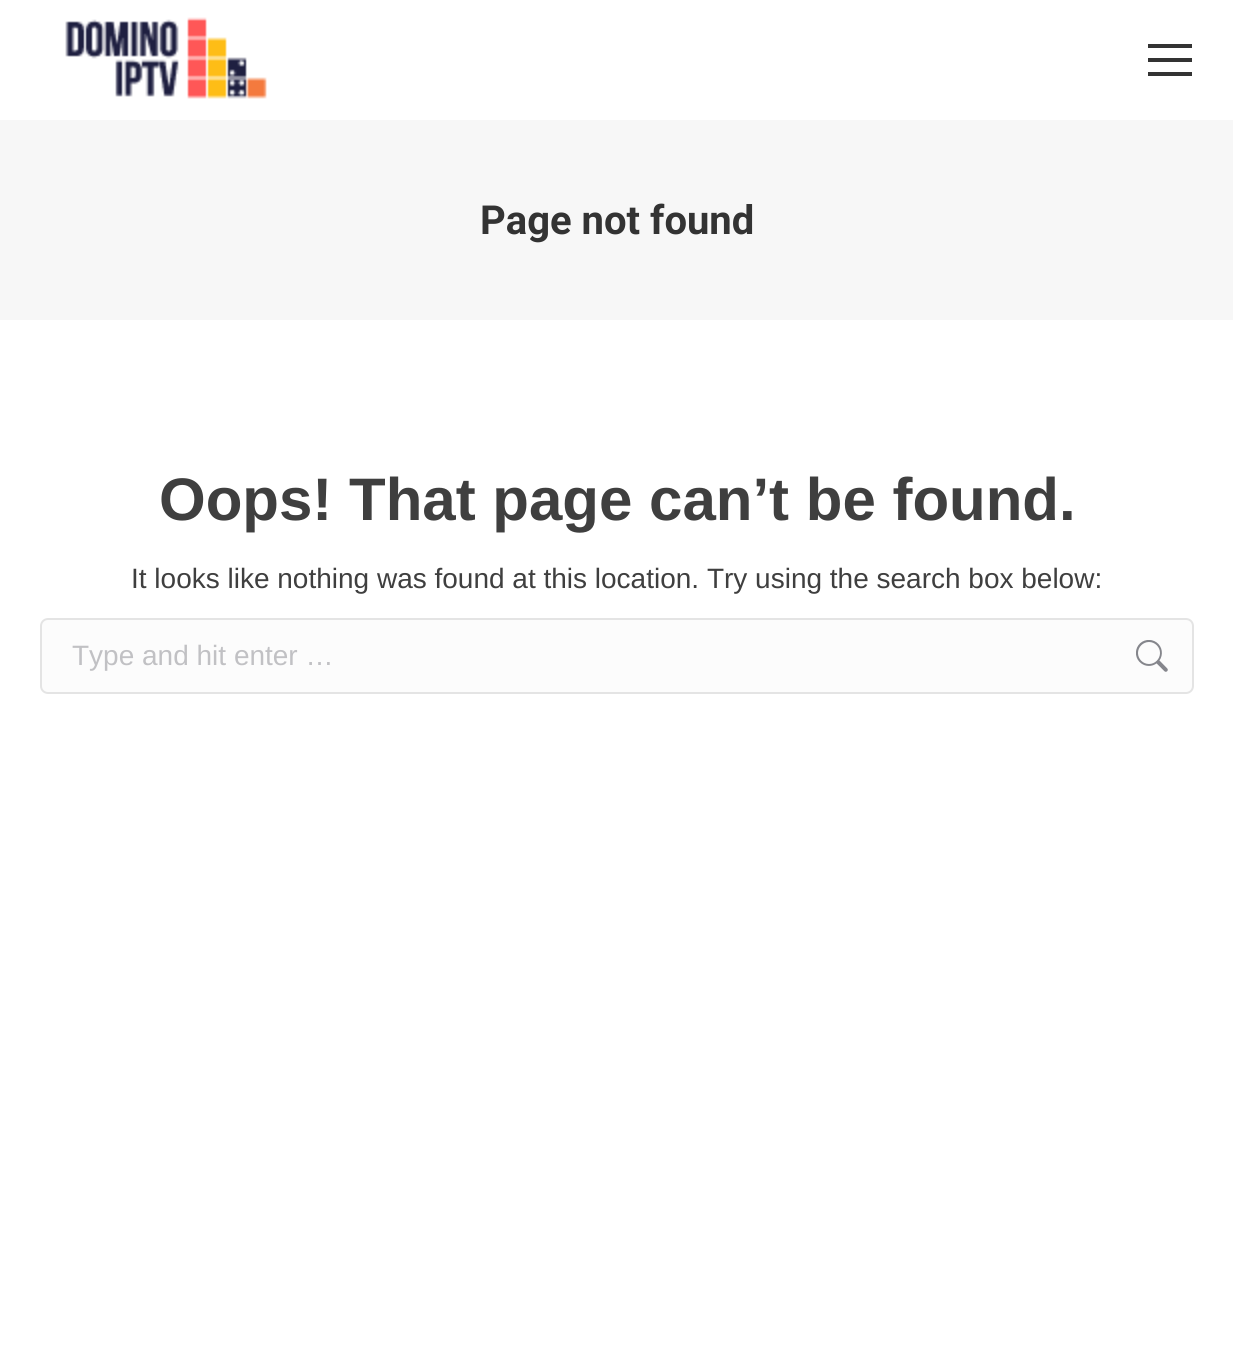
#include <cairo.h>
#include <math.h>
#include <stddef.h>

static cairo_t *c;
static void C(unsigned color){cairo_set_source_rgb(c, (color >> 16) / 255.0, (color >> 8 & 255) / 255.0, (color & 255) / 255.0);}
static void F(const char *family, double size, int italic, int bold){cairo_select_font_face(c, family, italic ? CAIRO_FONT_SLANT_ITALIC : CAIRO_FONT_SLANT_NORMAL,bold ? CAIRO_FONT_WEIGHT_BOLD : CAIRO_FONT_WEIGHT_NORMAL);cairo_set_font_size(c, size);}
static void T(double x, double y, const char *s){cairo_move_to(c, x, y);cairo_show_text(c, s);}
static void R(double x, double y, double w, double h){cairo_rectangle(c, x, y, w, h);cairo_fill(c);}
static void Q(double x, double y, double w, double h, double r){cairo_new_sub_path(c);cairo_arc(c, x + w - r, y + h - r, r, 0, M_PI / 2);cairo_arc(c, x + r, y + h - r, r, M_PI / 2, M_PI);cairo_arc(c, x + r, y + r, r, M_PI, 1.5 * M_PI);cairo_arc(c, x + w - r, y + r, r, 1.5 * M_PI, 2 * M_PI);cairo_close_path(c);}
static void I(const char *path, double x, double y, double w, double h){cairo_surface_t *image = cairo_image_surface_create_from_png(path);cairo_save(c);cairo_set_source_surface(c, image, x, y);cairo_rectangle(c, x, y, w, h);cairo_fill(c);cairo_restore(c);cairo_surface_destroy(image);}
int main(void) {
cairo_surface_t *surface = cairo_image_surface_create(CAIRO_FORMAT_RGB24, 1233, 1365);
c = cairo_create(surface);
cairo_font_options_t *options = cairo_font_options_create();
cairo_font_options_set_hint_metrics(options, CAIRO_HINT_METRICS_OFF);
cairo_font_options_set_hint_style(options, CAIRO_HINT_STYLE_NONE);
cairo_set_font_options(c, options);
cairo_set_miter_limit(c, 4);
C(0xffffff);
cairo_paint(c);
I("1.png",65,17,202,82);
C(0x333333);
R(1148,44,44,4);
R(1148,58,44,4);
R(1148,72,44,4);
C(0xf7f7f7);
R(0,120,1233,200);
F("Roboto",40,0,1);
C(0x333333);
T(480,234,"Page not found");
F("Liberation Sans",60,0,1);
C(0x3f3f3f);
T(159,520,"Oops! That page can’t be found.");
F("Liberation Sans",28,0,0);
T(131,588,"It looks like nothing was found at this location. Try using the search box below:");
C(0xfcfcfc);
Q(41,619,1152,74,7);
cairo_fill_preserve(c);
C(0xe4e4e4);
cairo_stroke(c);
C(0xc1c1c4);
T(72,665,"Type and hit enter …");
I("2.png",1136,640,32,32);
cairo_surface_write_to_png(surface, "o.png");
cairo_font_options_destroy(options);
cairo_destroy(c);
cairo_surface_destroy(surface);
return 0;
}
